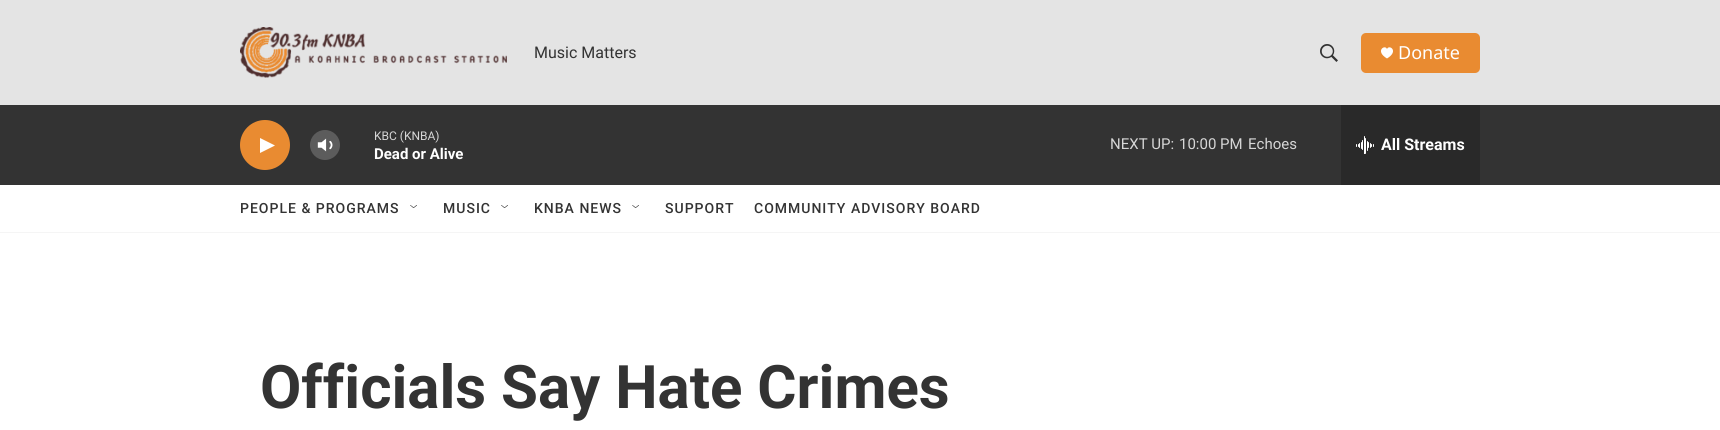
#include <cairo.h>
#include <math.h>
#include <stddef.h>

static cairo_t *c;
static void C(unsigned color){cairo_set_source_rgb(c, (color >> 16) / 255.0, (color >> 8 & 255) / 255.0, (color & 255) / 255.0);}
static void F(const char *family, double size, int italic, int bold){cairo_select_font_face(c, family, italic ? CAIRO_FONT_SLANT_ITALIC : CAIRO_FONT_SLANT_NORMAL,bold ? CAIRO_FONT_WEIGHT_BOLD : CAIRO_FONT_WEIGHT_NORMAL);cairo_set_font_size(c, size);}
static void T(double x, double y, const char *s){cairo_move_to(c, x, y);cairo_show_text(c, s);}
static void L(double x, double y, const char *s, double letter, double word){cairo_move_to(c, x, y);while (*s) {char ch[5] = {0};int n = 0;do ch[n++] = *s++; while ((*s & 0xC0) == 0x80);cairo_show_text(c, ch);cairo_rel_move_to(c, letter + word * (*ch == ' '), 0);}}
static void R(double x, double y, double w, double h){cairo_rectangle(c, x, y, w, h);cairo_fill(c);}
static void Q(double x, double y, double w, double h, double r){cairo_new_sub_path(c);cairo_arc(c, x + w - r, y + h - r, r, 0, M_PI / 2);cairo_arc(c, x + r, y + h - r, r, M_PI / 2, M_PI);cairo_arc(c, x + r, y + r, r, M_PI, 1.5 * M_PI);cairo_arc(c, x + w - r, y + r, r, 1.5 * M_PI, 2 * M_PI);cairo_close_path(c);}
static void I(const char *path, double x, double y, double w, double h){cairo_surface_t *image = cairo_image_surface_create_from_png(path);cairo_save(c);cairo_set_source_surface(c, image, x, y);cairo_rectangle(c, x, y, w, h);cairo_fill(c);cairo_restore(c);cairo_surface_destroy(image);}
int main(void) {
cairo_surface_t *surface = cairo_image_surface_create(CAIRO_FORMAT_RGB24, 1720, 430);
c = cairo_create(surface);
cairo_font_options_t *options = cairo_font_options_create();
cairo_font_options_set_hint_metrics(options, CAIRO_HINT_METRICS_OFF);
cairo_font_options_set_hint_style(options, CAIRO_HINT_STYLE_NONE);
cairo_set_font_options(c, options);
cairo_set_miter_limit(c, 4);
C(0xffffff);
cairo_paint(c);
C(0xe4e4e4);
R(0,0,1720,105);
C(0xf5f5f5);
R(0,232,1720,1);
I("1.png",240,27,267,51);
F("Roboto",16,0,0);
C(0x333333);
T(534,58,"Music Matters");
I("2.png",1320,44,18,18);
C(0xe98b31);
Q(1361,33,119,40,5);
cairo_fill(c);
C(0xffffff);
cairo_new_path(c);
cairo_move_to(c,1387,49);
cairo_curve_to(c,1385,44,1374.5,51,1387,58.5);
cairo_curve_to(c,1399.5,51,1389,44,1387,49);
cairo_close_path(c);
cairo_fill(c);
F("Noto Sans",18,0,0);
T(1398,59,"Donate");
C(0x333333);
R(0,105,1720,80);
C(0xe98b31);
cairo_new_path(c);
cairo_arc(c,265,145,25,0,2 * M_PI);
cairo_fill(c);
C(0xffffff);
cairo_new_path(c);
cairo_move_to(c,260,138);
cairo_line_to(c,275,145.5);
cairo_line_to(c,260,153);
cairo_close_path(c);
cairo_fill(c);
I("3.png",317,138,16,14);
cairo_set_source_rgba(c,1,1,1,0.2);
cairo_arc(c,325,145,15,0,2 * M_PI);
cairo_fill(c);
F("Roboto",12,0,0);
C(0xd6d6d6);
T(374,140,"KBC (KNBA)");
F("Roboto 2",15,0,1);
C(0xffffff);
T(374,159,"Dead or Alive");
F("Roboto",15,0,0);
C(0xd6d6d6);
T(1110,149,"NEXT UP:");
T(1179,149,"10:00 PM");
T(1248,149,"Echoes");
C(0x292929);
R(1341,105,139,80);
I("4.png",1356,136,18,18);
F("Roboto 2",16,0,1);
C(0xffffff);
T(1381,150,"All Streams");
F("Roboto Medium",14,0,0);
C(0x333333);
L(240,213,"PEOPLE & PROGRAMS",1,0);
I("5.png",410,205,7,3);
L(443,213,"MUSIC",1,0);
I("6.png",501,205,7,3);
L(534,213,"KNBA NEWS",1,0);
I("7.png",632,205,7,3);
L(665,213,"SUPPORT",1,0);
L(754,213,"COMMUNITY ADVISORY BOARD",1,0);
F("Roboto",60,0,1);
T(260,408,"Officials Say Hate Crimes");
cairo_surface_write_to_png(surface, "o.png");
cairo_font_options_destroy(options);
cairo_destroy(c);
cairo_surface_destroy(surface);
return 0;
}
